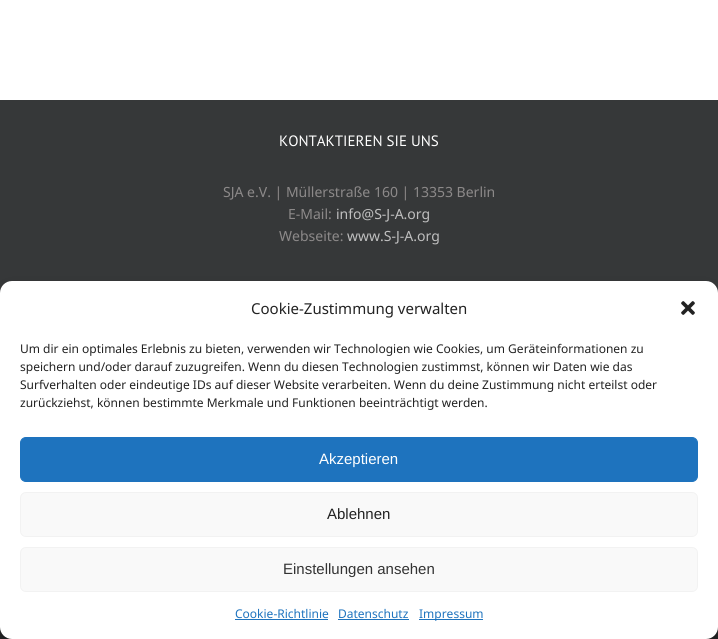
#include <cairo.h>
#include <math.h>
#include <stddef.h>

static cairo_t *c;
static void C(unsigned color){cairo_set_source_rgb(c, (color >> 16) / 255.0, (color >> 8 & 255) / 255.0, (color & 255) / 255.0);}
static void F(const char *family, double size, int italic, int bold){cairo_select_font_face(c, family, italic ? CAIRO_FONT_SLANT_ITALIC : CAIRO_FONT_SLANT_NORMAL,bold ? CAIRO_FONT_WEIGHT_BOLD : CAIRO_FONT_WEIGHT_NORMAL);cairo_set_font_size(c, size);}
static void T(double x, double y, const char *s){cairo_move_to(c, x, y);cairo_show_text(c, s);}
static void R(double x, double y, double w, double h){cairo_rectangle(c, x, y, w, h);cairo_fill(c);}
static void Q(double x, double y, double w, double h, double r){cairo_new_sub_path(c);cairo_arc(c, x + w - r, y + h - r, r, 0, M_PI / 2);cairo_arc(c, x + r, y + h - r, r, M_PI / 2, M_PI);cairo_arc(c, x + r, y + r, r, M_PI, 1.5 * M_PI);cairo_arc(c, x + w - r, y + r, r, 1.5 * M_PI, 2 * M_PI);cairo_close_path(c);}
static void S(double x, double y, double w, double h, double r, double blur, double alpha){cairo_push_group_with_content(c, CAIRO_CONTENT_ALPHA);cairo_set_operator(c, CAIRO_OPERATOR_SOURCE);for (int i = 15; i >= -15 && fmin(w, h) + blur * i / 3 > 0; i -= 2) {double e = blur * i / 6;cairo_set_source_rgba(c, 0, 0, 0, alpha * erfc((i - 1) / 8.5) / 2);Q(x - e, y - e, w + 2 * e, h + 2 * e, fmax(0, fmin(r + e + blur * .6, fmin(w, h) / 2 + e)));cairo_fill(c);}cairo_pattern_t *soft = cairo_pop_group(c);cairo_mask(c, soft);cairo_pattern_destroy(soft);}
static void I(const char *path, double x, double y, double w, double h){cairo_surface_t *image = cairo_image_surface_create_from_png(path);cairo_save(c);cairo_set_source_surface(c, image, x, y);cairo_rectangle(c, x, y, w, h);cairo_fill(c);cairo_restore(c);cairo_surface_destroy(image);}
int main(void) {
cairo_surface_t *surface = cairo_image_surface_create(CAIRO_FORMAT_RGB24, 718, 639);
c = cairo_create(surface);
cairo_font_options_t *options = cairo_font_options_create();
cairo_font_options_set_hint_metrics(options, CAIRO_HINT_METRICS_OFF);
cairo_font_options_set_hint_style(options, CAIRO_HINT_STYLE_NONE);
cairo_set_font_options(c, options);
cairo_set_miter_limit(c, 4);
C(0xffffff);
cairo_paint(c);
C(0x363839);
R(0,100,718,193);
F("PT Sans",15,0,0);
C(0xffffff);
T(279,146,"KONTAKTIEREN SIE UNS");
F("Noto Sans",14,0,0);
C(0x8c8989);
T(223,197,"SJA e.V. | Müllerstraße 160 | 13353 Berlin");
T(288,219,"E-Mail:");
C(0xbfbfbf);
T(336,219,"info@S-J-A.org");
C(0x8c8989);
T(279,241,"Webseite:");
C(0xbfbfbf);
T(347,241,"www.S-J-A.org");
C(0x282a2b);
R(0,627,718,12);
C(0x000000);
S(0,287,718,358,12,3,.23);
S(0,291,718,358,12,10,.19);
C(0xffffff);
Q(0,281,718,358,12);
cairo_fill(c);
F("Noto Sans",15,0,0);
C(0x222222);
T(251,314,"Cookie-Zustimmung verwalten");
I("1.png",681,301,14,14);
F("Noto Sans",12,0,0);
T(20,353,"Um dir ein optimales Erlebnis zu bieten, verwenden wir Technologien wie Cookies, um Geräteinformationen zu");
T(20,371,"speichern und/oder darauf zuzugreifen. Wenn du diesen Technologien zustimmst, können wir Daten wie das");
T(20,389,"Surfverhalten oder eindeutige IDs auf dieser Website verarbeiten. Wenn du deine Zustimmung nicht erteilst oder");
T(20,407,"zurückziehst, können bestimmte Merkmale und Funktionen beeinträchtigt werden.");
C(0x1e73be);
Q(20.5,437.5,677,44,5.5);
cairo_fill_preserve(c);
cairo_set_line_width(c,1);
cairo_stroke(c);
F("Liberation Sans",15,0,0);
C(0xffffff);
T(319,464,"Akzeptieren");
C(0xf9f9f9);
Q(20.5,492.5,677,44,5.5);
cairo_fill_preserve(c);
C(0xf2f2f2);
cairo_stroke(c);
C(0x222222);
T(327,519,"Ablehnen");
C(0xf9f9f9);
Q(20.5,547.5,677,44,5.5);
cairo_fill_preserve(c);
C(0xf2f2f2);
cairo_stroke(c);
C(0x333333);
T(283,574,"Einstellungen ansehen");
F("Noto Sans",12,0,0);
C(0x1e73be);
T(235,618,"Cookie-Richtlinie");
R(235,619,93,1);
T(338,618,"Datenschutz");
R(338,619,71,1);
R(419,619,64,1);
T(419,618,"Impressum");
cairo_surface_write_to_png(surface, "o.png");
cairo_font_options_destroy(options);
cairo_destroy(c);
cairo_surface_destroy(surface);
return 0;
}
